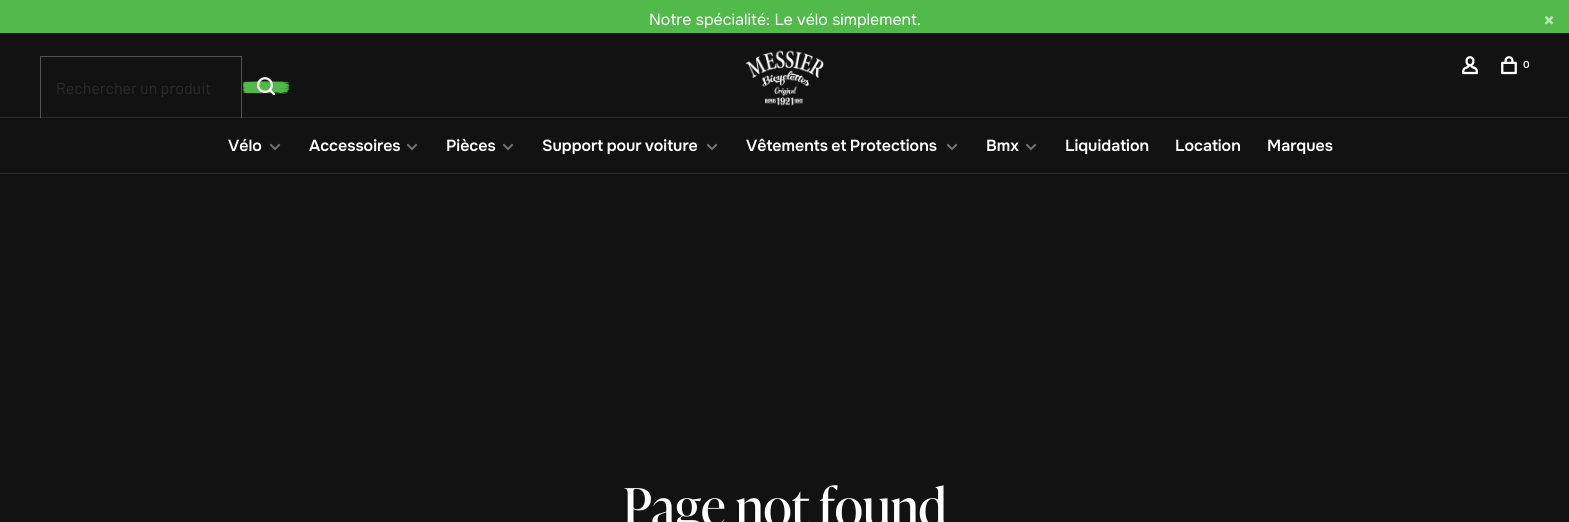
#include <cairo.h>
#include <math.h>
#include <stddef.h>

static cairo_t *c;
static void C(unsigned color){cairo_set_source_rgb(c, (color >> 16) / 255.0, (color >> 8 & 255) / 255.0, (color & 255) / 255.0);}
static void F(const char *family, double size, int italic, int bold){cairo_select_font_face(c, family, italic ? CAIRO_FONT_SLANT_ITALIC : CAIRO_FONT_SLANT_NORMAL,bold ? CAIRO_FONT_WEIGHT_BOLD : CAIRO_FONT_WEIGHT_NORMAL);cairo_set_font_size(c, size);}
static void T(double x, double y, const char *s){cairo_move_to(c, x, y);cairo_show_text(c, s);}
static void L(double x, double y, const char *s, double letter, double word){cairo_move_to(c, x, y);while (*s) {char ch[5] = {0};int n = 0;do ch[n++] = *s++; while ((*s & 0xC0) == 0x80);cairo_show_text(c, ch);cairo_rel_move_to(c, letter + word * (*ch == ' '), 0);}}
static void R(double x, double y, double w, double h){cairo_rectangle(c, x, y, w, h);cairo_fill(c);}
static void I(const char *path, double x, double y, double w, double h){cairo_surface_t *image = cairo_image_surface_create_from_png(path);cairo_save(c);cairo_set_source_surface(c, image, x, y);cairo_rectangle(c, x, y, w, h);cairo_fill(c);cairo_restore(c);cairo_surface_destroy(image);}
int main(void) {
cairo_surface_t *surface = cairo_image_surface_create(CAIRO_FORMAT_RGB24, 1569, 522);
c = cairo_create(surface);
cairo_font_options_t *options = cairo_font_options_create();
cairo_font_options_set_hint_metrics(options, CAIRO_HINT_METRICS_OFF);
cairo_font_options_set_hint_style(options, CAIRO_HINT_STYLE_NONE);
cairo_set_font_options(c, options);
cairo_set_miter_limit(c, 4);
C(0x121212);
cairo_paint(c);
C(0x52ba4b);
R(0,0,1569,33);
F("Onest",16,0,0);
C(0xffffff);
T(649,25,"Notre spécialité: Le vélo simplement.");
I("1.png",1544,16,10,9);
C(0x2a2a2a);
R(0,117,1569,1);
I("2.png",745,50,79,56);
I("3.png",1462,56,16,19);
I("4.png",1501,56,16,19);
F("Onest SemiBold",10,0,0);
C(0xffffff);
T(1523,68,"0");
cairo_rectangle(c,40.5,56.5,201,62);
cairo_set_source_rgba(c,1,1,1,0.27);
cairo_set_line_width(c,1);
cairo_stroke(c);
F("Barlow",16,0,0);
C(0x2b2b2b);
T(56,94,"Rechercher un produit");
I("5.png",242,81,48,13);
I("6.png",257,77,18,19);
C(0x121212);
R(40,118,202,1);
C(0x2a2a2a);
R(0,173,1569,1);
F("Onest SemiBold",16,0,0);
C(0xffffff);
T(228,151,"Vélo");
I("7.png",269,143,12,8);
T(309,151,"Accessoires");
I("7.png",406,143,12,8);
T(446,151,"Pièces");
I("7.png",502,143,12,8);
L(542,151,"Support pour voiture",0,-1);
I("7.png",706,143,12,8);
L(746,151,"Vêtements et Protections",0,-1);
I("7.png",946,143,12,8);
T(986,151,"Bmx");
I("7.png",1025,143,12,8);
T(1065,151,"Liquidation");
T(1175,151,"Location");
T(1267,151,"Marques");
F("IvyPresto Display",52,0,0);
T(623,526,"Page not found");
cairo_surface_write_to_png(surface, "o.png");
cairo_font_options_destroy(options);
cairo_destroy(c);
cairo_surface_destroy(surface);
return 0;
}
